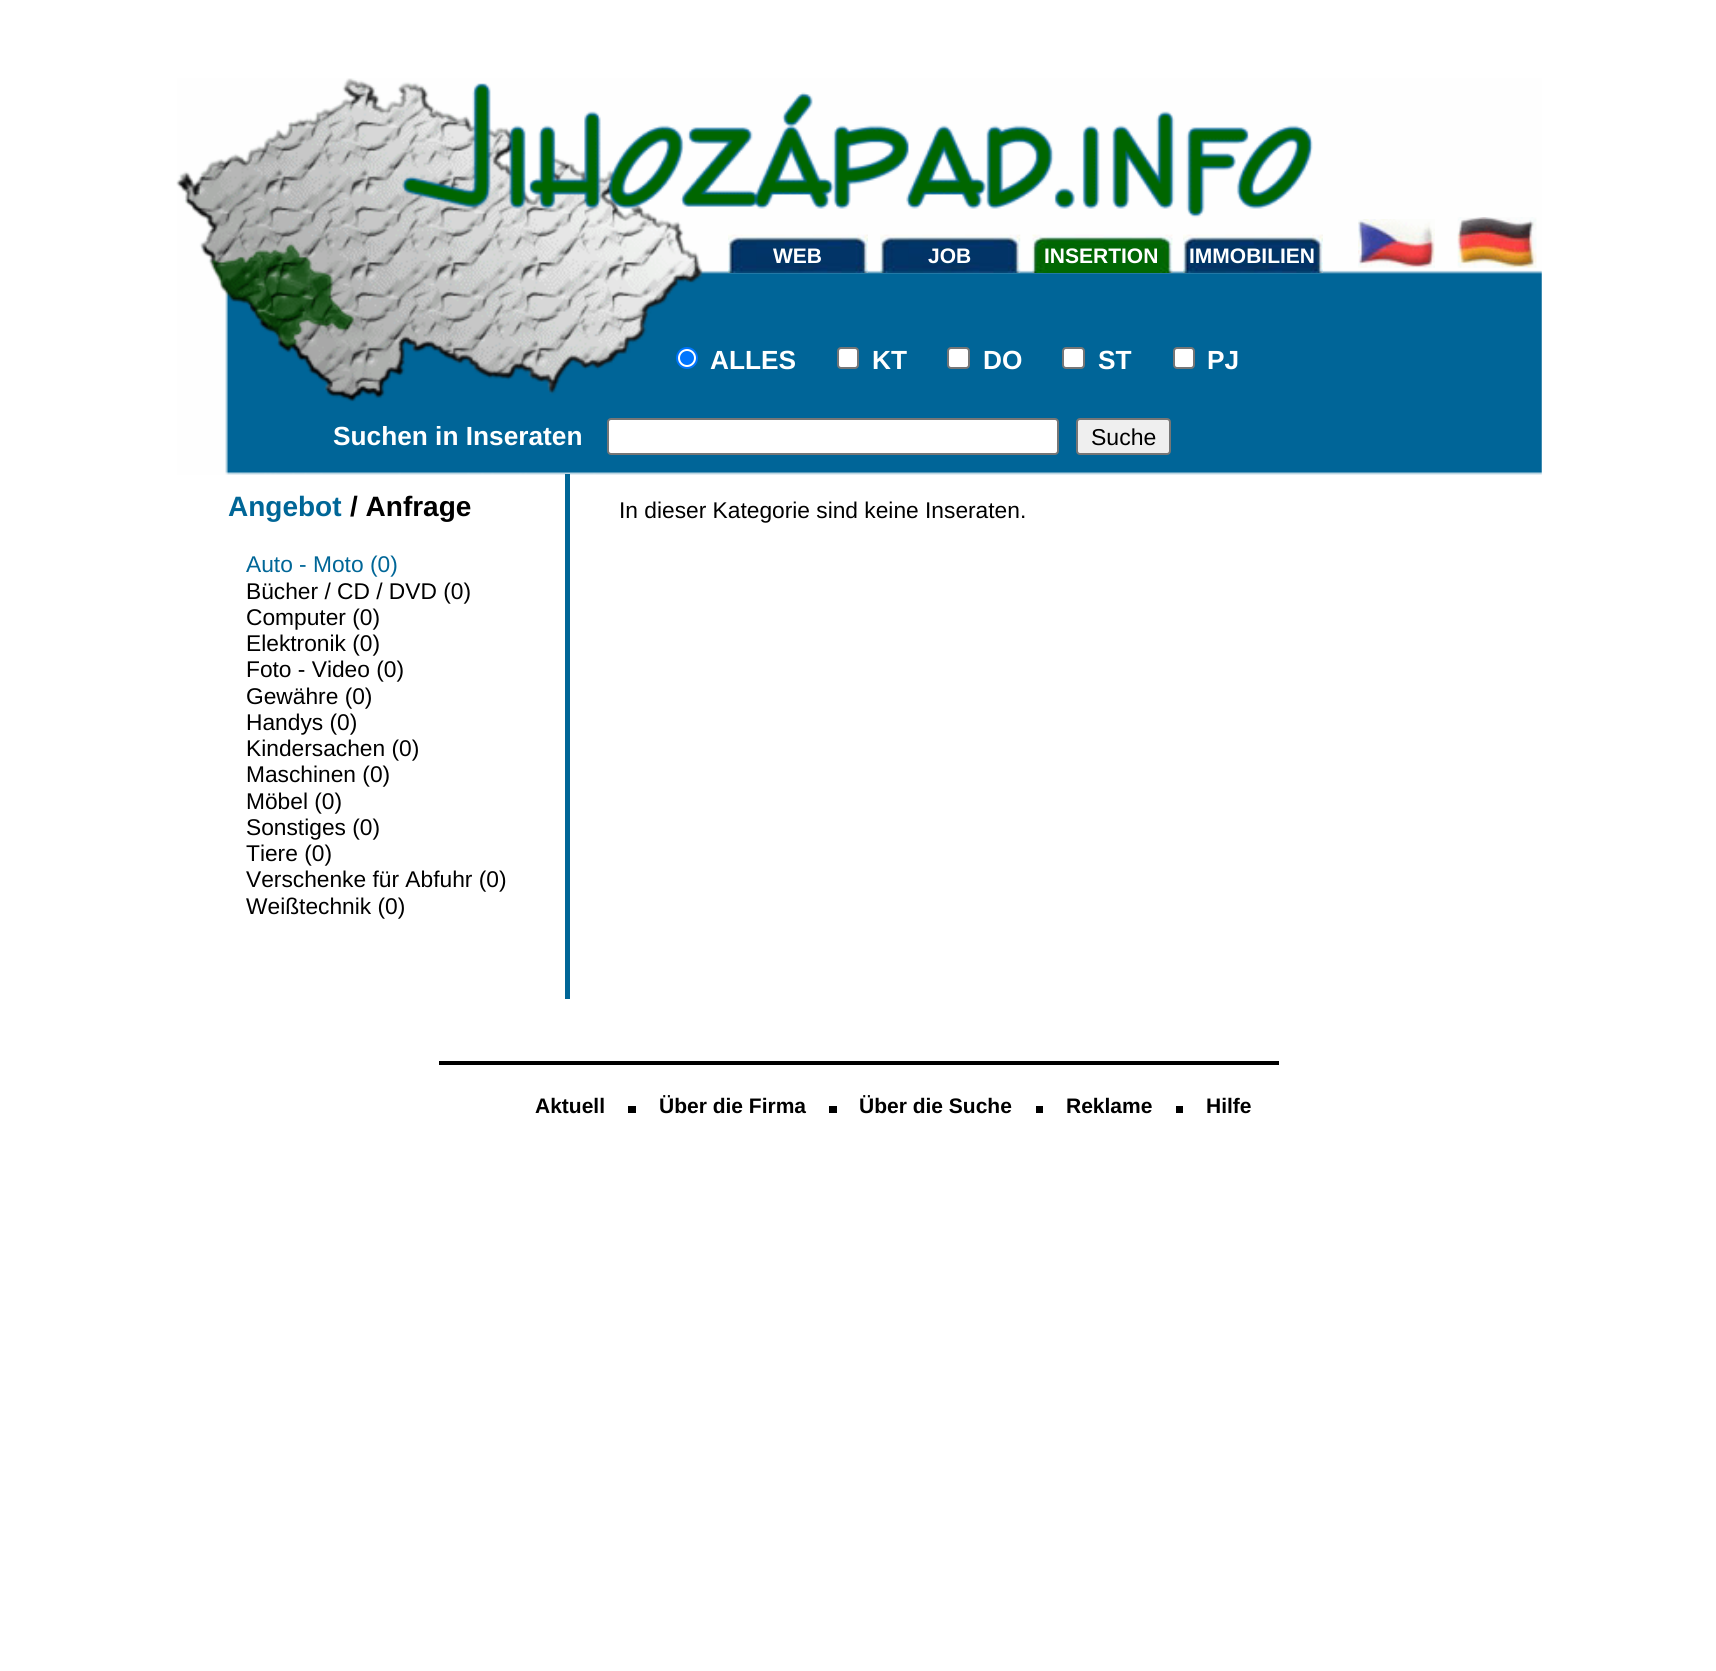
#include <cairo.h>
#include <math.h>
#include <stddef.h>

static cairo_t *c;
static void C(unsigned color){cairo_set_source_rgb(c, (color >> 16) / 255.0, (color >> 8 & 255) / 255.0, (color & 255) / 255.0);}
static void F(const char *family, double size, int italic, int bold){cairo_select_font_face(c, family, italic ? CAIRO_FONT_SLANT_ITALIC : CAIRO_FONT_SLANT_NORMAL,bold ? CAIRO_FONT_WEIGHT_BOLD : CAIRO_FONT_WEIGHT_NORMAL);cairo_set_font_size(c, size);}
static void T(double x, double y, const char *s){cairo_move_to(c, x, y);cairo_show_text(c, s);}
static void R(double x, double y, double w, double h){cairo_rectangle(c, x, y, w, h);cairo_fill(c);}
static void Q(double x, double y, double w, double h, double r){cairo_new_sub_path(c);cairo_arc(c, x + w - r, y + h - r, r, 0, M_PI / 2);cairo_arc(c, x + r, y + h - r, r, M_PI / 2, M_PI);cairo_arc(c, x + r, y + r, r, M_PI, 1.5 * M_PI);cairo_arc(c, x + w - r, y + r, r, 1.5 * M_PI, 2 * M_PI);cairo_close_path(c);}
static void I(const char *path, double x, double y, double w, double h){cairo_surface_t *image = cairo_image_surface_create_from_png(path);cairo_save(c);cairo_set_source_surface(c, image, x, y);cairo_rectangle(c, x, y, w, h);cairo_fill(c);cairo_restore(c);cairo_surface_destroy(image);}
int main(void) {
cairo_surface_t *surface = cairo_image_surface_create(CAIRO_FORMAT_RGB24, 1716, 1671);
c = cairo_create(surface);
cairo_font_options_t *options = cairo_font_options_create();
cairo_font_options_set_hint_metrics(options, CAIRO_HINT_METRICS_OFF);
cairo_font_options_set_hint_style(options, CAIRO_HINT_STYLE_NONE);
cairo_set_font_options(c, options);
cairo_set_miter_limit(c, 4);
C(0xffffff);
cairo_paint(c);
I("1.png",176,78,1366,397);
I("2.png",728,234,140,39);
F("Liberation Sans",21,0,1);
C(0xffffff);
T(773,263,"WEB");
I("3.png",880,234,141,39);
T(928,263,"JOB");
I("4.png",1032,234,141,39);
T(1044,263,"INSERTION");
I("2.png",1183,234,140,39);
T(1189,263,"IMMOBILIEN");
I("5.png",1358,219,77,49);
I("6.png",1457,217,80,51);
cairo_arc(c,687,358,10,0,2 * M_PI);
cairo_fill_preserve(c);
C(0x0075ff);
cairo_stroke(c);
cairo_arc(c,687,358,7,0,2 * M_PI);
cairo_fill(c);
F("Liberation Sans",26.25,0,1);
C(0xffffff);
T(710,369,"ALLES");
Q(838,348,20,20,3);
cairo_fill_preserve(c);
C(0x767676);
cairo_stroke(c);
C(0xffffff);
T(872,369,"KT");
Q(948,348,21,20,3);
cairo_fill_preserve(c);
C(0x767676);
cairo_stroke(c);
C(0xffffff);
T(983,369,"DO");
Q(1063,348,21,20,3);
cairo_fill_preserve(c);
C(0x767676);
cairo_stroke(c);
C(0xffffff);
T(1098,369,"ST");
Q(1174,348,20,20,3);
cairo_fill_preserve(c);
C(0x767676);
cairo_stroke(c);
C(0xffffff);
T(1207,369,"PJ");
T(333,445,"Suchen in Inseraten");
Q(608,419,450,35,3);
cairo_fill_preserve(c);
C(0x767676);
cairo_stroke(c);
C(0xefefef);
Q(1077,419,93,35,3);
cairo_fill_preserve(c);
C(0x767676);
cairo_stroke(c);
F("Liberation Sans",23,0,0);
C(0x000000);
T(1091,445,"Suche");
F("Liberation Sans",28,0,1);
C(0x006697);
T(228,516,"Angebot");
C(0x000000);
T(350,516,"/ Anfrage");
F("Liberation Sans",22.75,0,0);
C(0x006697);
T(246,572,"Auto - Moto (0)");
C(0x000000);
T(246,599,"Bücher / CD / DVD (0)");
T(246,625,"Computer (0)");
T(246,651,"Elektronik (0)");
T(246,677,"Foto - Video (0)");
T(246,704,"Gewähre (0)");
T(246,730,"Handys (0)");
T(246,756,"Kindersachen (0)");
T(246,782,"Maschinen (0)");
T(246,809,"Möbel (0)");
T(246,835,"Sonstiges (0)");
T(246,861,"Tiere (0)");
T(246,887,"Verschenke für Abfuhr (0)");
T(246,914,"Weißtechnik (0)");
C(0x006697);
R(565,474,5,525);
C(0x000000);
T(619,518,"In dieser Kategorie sind keine Inseraten.");
R(439,1061,840,4);
F("Liberation Sans",21,0,1);
T(535,1113,"Aktuell");
R(628,1106,8,7);
T(659,1113,"Über die Firma");
R(829,1106,8,7);
T(859,1113,"Über die Suche");
R(1036,1106,7,7);
T(1066,1113,"Reklame");
R(1176,1106,7,7);
T(1206,1113,"Hilfe");
cairo_surface_write_to_png(surface, "o.png");
cairo_font_options_destroy(options);
cairo_destroy(c);
cairo_surface_destroy(surface);
return 0;
}
